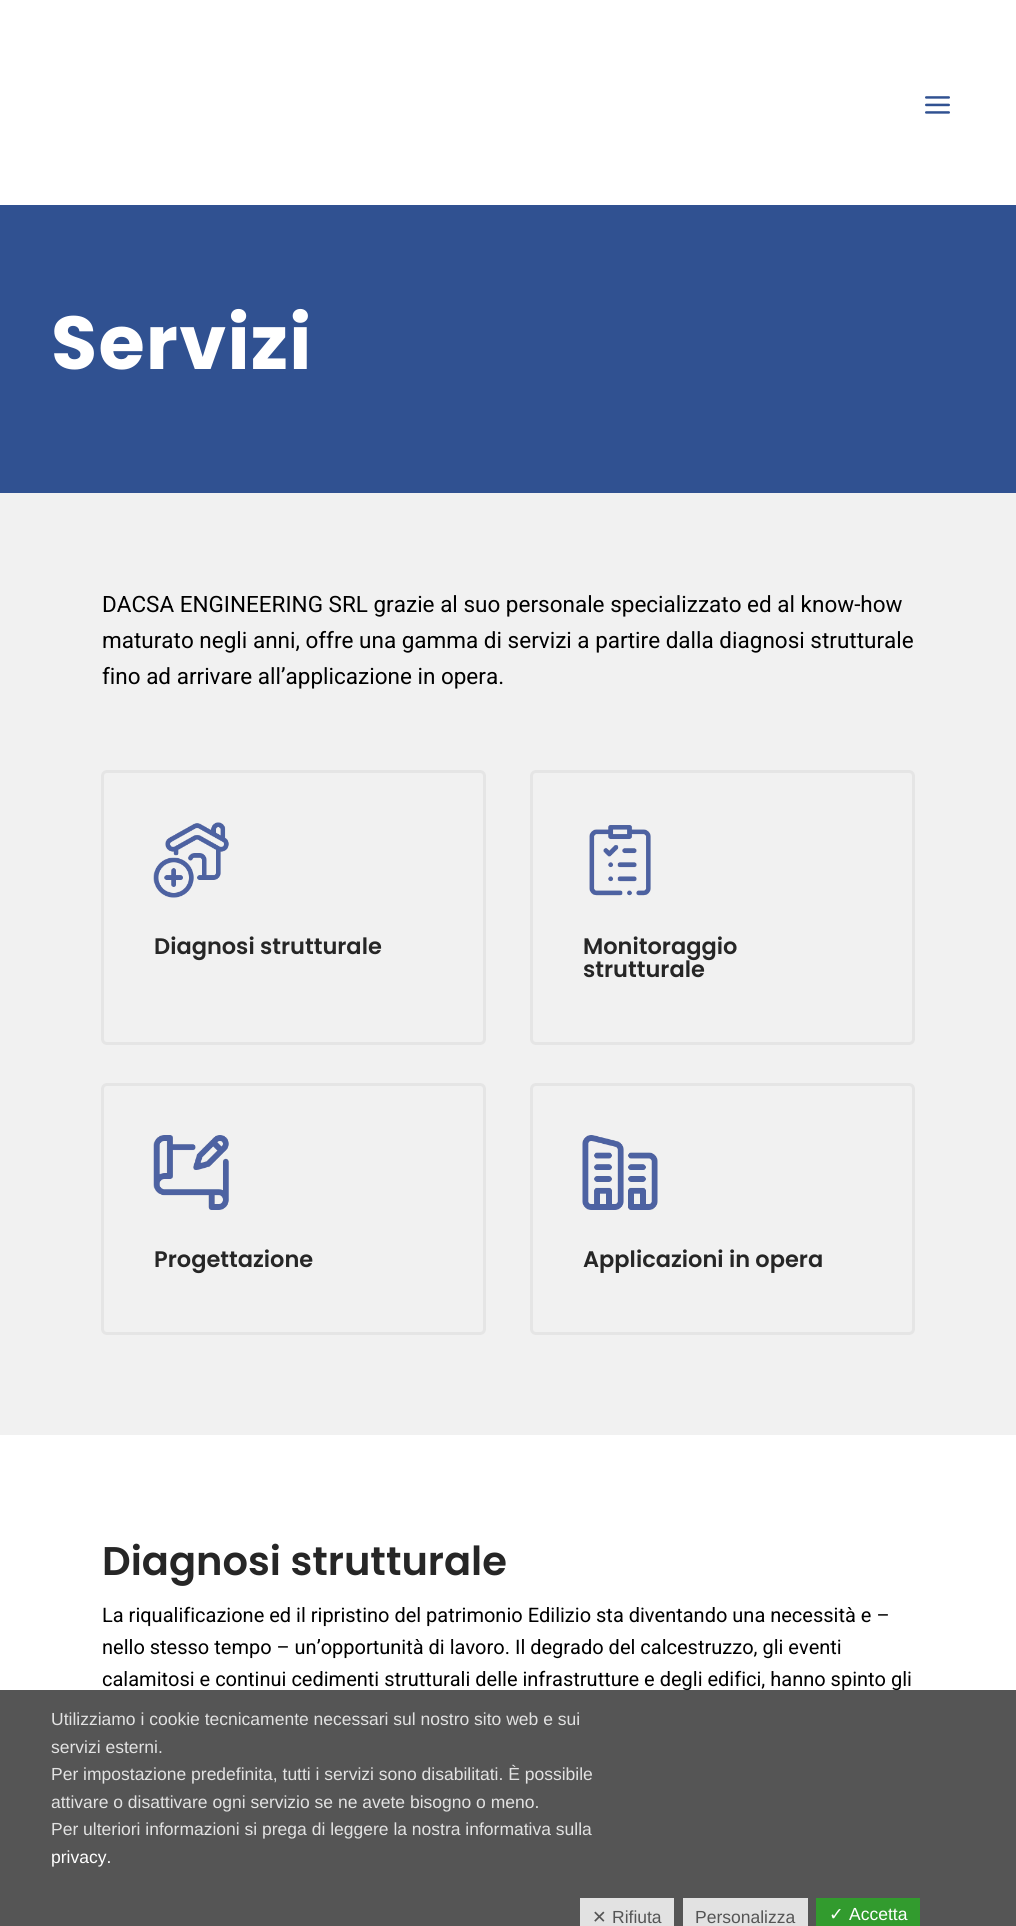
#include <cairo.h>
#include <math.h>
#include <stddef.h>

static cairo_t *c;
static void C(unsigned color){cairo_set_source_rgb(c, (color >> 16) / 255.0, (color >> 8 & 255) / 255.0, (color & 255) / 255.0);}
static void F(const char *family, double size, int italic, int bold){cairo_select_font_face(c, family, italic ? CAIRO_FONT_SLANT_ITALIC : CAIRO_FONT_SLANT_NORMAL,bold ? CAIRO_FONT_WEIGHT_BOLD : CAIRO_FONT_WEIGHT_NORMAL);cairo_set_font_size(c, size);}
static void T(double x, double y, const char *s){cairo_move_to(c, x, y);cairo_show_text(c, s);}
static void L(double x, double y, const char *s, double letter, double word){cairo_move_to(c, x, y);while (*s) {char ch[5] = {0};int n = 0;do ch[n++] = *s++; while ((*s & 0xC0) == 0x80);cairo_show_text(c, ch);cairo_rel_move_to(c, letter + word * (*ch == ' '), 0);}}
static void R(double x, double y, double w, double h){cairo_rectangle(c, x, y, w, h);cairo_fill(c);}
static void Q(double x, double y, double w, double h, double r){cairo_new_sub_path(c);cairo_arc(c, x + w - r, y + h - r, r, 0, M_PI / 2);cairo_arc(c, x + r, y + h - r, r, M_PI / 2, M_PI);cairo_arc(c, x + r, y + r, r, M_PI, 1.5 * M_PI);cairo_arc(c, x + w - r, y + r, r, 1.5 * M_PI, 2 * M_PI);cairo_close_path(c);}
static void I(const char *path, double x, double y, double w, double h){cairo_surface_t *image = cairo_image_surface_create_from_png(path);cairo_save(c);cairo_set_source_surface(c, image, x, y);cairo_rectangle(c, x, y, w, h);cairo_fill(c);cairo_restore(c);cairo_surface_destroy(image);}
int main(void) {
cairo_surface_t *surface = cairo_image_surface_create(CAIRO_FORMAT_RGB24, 1016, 1926);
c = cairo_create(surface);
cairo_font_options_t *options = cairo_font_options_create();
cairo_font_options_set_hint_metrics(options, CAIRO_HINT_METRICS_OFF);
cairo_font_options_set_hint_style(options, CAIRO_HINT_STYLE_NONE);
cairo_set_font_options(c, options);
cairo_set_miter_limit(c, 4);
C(0xffffff);
cairo_paint(c);
I("1.png",925,96,25,18);
C(0x305191);
R(0,205,1016,288);
F("Poppins",75,0,1);
C(0xffffff);
L(51,369,"Servizi",1.25,0);
C(0xf1f1f1);
R(0,493,1016,942);
F("Roboto",22.5,0,0);
C(0x000000);
T(102,612,"DACSA ENGINEERING SRL grazie al suo personale specializzato ed al know-how");
T(102,648,"maturato negli anni, offre una gamma di servizi a partire dalla diagnosi strutturale");
T(102,684,"fino ad arrivare all’applicazione in opera.");
Q(102.5,771.5,382,272,4.5);
C(0xe5e5e5);
cairo_set_line_width(c,3);
cairo_stroke(c);
I("2.png",153,822,76,76);
F("Poppins SemiBold",22.5,0,0);
C(0x262626);
T(154,954,"Diagnosi strutturale");
Q(531.5,771.5,382,272,4.5);
C(0xe5e5e5);
cairo_stroke(c);
I("3.png",589,825,62,71);
C(0x262626);
T(583,954,"Monitoraggio");
T(583,977,"strutturale");
Q(102.5,1084.5,382,249,4.5);
C(0xe5e5e5);
cairo_stroke(c);
I("4.png",153,1135,76,75);
C(0x262626);
T(154,1267,"Progettazione");
Q(531.5,1084.5,382,249,4.5);
C(0xe5e5e5);
cairo_stroke(c);
I("5.png",582,1135,76,75);
C(0x262626);
T(583,1267,"Applicazioni in opera");
F("Poppins SemiBold",40,0,0);
T(102,1575,"Diagnosi strutturale");
F("Roboto",20,0,0);
C(0x000000);
T(102,1622,"La riqualificazione ed il ripristino del patrimonio Edilizio sta diventando una necessità e –");
T(102,1654,"nello stesso tempo – un’opportunità di lavoro. Il degrado del calcestruzzo, gli eventi");
T(102,1686,"calamitosi e continui cedimenti strutturali delle infrastrutture e degli edifici, hanno spinto gli");
cairo_set_source_rgba(c,0.2,0.2,0.2,0.83);
R(0,1690,1016,236);
F("Liberation Sans",17.5,0,0);
C(0xe2e2e2);
T(51,1725,"Utilizziamo i cookie tecnicamente necessari sul nostro sito web e sui");
T(51,1753,"servizi esterni.");
T(51,1780,"Per impostazione predefinita, tutti i servizi sono disabilitati. È possibile");
T(51,1808,"attivare o disattivare ogni servizio se ne avete bisogno o meno.");
T(51,1835,"Per ulteriori informazioni si prega di leggere la nostra informativa sulla");
C(0xffffff);
T(51,1863,"privacy.");
cairo_set_source_rgba(c,1,1,1,0.83);
R(580,1898,94,28);
F("DejaVu Sans",17.5,0,0);
C(0x555555);
T(592,1923,"✕");
F("Liberation Sans",17.5,0,0);
T(612,1923,"Rifiuta");
cairo_set_source_rgba(c,1,1,1,0.83);
R(683,1898,125,28);
C(0x555555);
T(695,1923,"Personalizza");
cairo_set_source_rgba(c,0.173,0.667,0.153,0.83);
R(816,1898,104,28);
F("DejaVu Sans",17.5,0,0);
C(0xffffff);
T(829,1920,"✓");
F("Liberation Sans",17.5,0,0);
T(849,1920,"Accetta");
cairo_surface_write_to_png(surface, "o.png");
cairo_font_options_destroy(options);
cairo_destroy(c);
cairo_surface_destroy(surface);
return 0;
}
